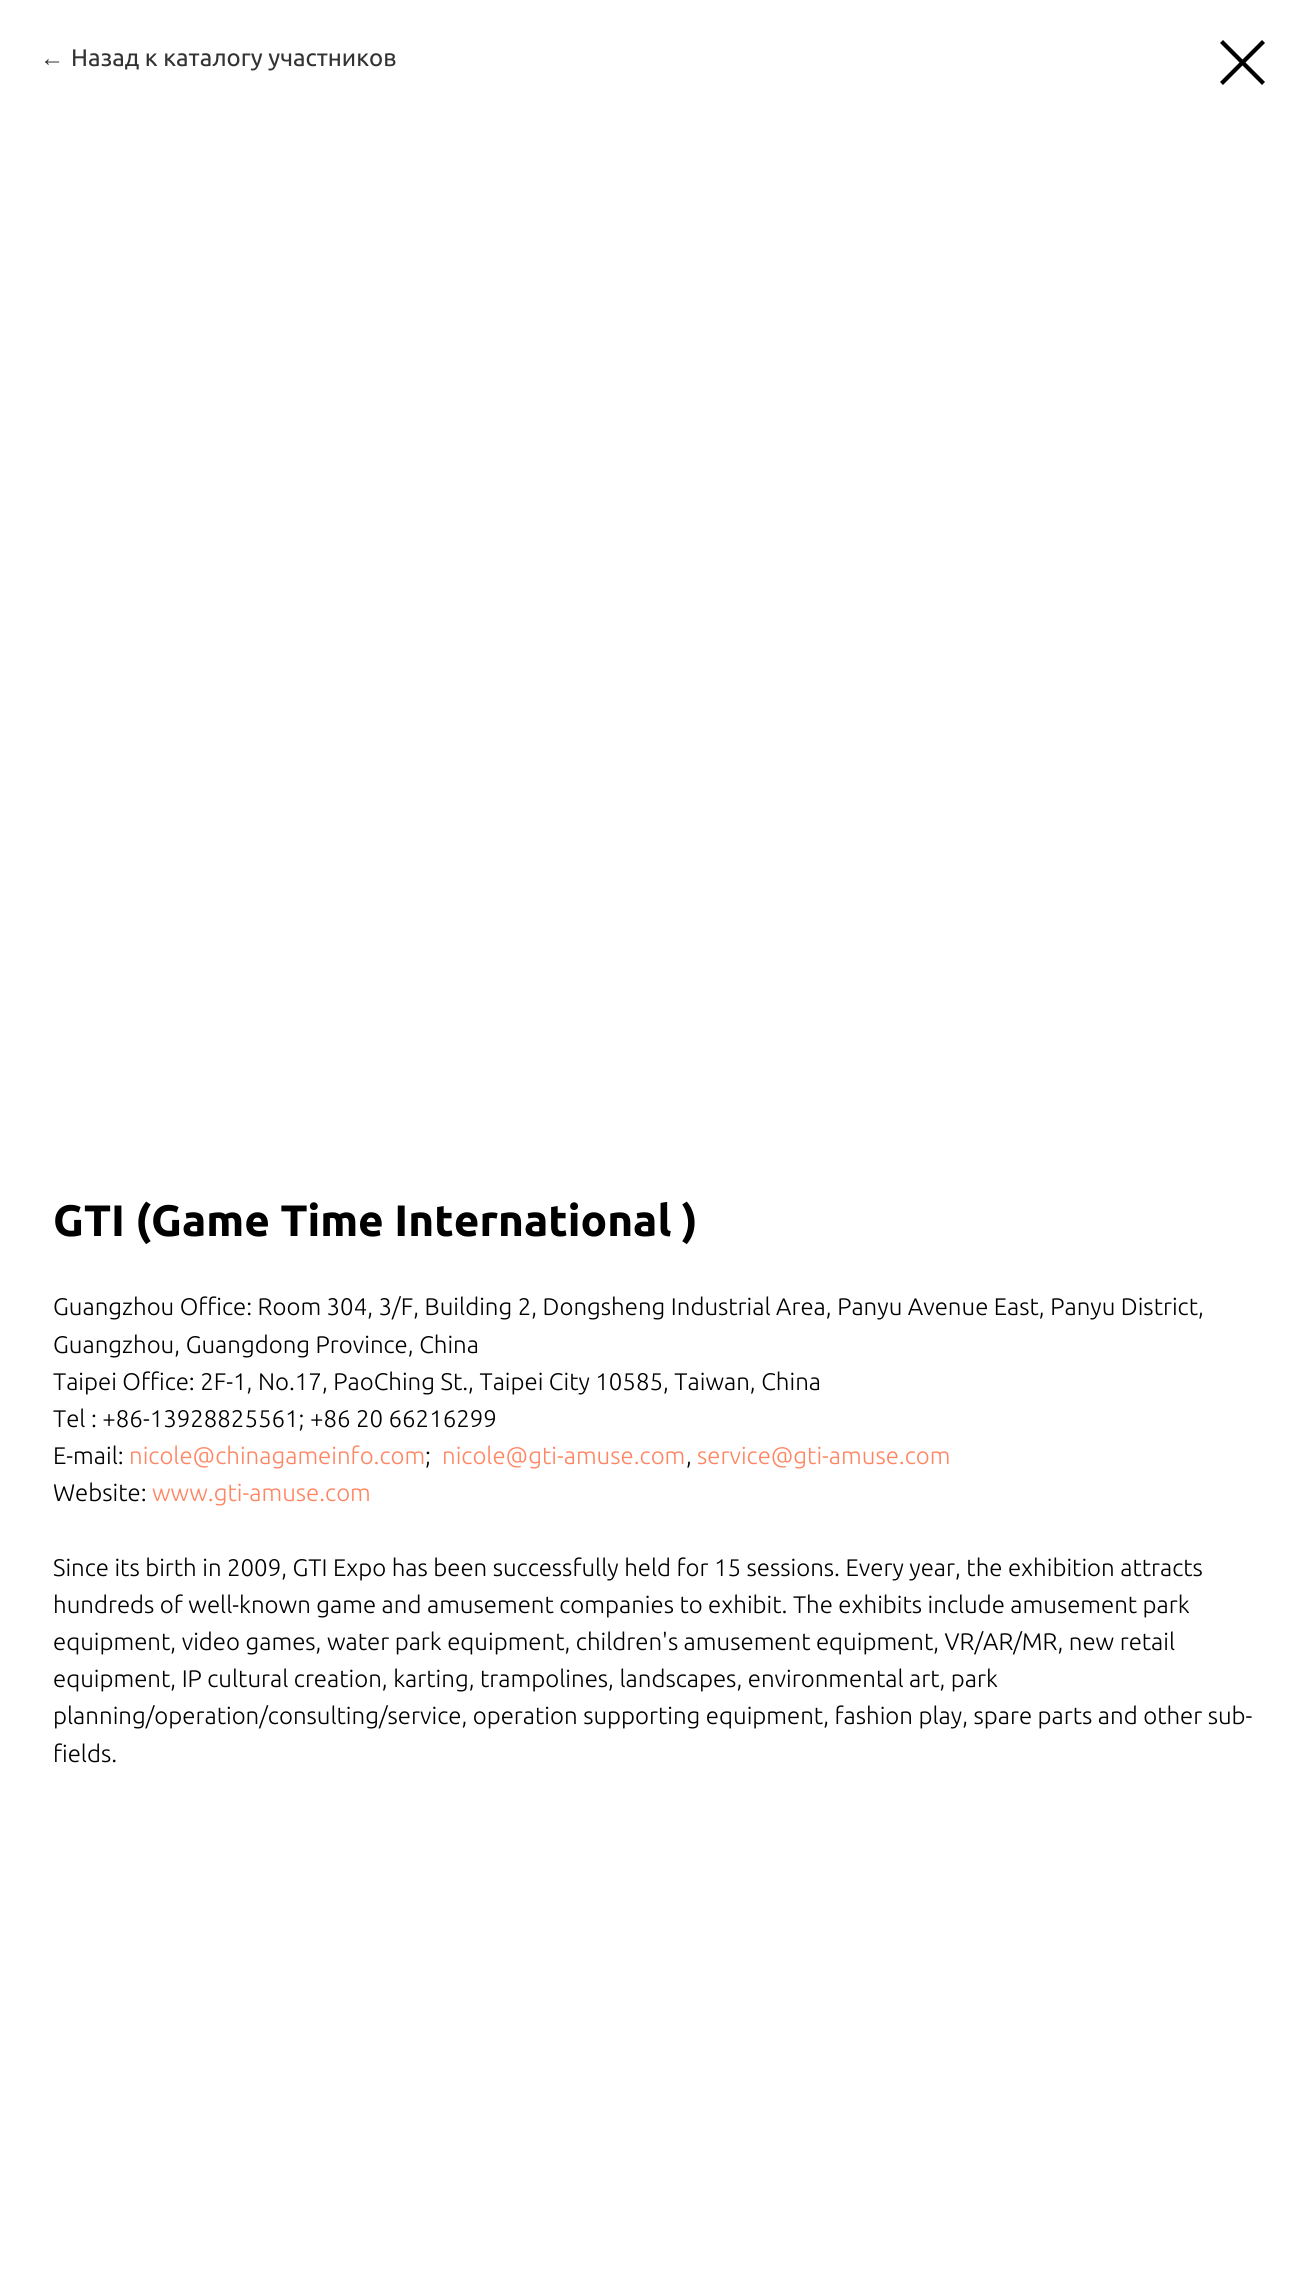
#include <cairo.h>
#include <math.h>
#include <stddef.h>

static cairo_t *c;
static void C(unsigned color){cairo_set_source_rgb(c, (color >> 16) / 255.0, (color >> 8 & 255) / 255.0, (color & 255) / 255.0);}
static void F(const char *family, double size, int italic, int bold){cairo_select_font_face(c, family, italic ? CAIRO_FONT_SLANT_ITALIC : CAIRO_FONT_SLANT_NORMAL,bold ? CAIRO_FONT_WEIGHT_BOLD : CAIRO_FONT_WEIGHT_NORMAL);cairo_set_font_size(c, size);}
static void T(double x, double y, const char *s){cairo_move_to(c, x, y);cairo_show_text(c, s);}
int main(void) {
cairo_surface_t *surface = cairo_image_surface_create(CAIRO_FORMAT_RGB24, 1305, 2294);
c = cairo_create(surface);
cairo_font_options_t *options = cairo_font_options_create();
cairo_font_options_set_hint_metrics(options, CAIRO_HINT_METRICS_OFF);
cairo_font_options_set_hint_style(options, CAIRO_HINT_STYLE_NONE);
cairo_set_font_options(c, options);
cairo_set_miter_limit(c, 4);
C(0xffffff);
cairo_paint(c);
F("Liberation Sans",24,0,0);
C(0x333333);
T(40,66,"←");
F("Ubuntu",24,0,0);
T(71,66,"Назад к каталогу участников");
C(0x000000);
cairo_set_fill_rule(c,CAIRO_FILL_RULE_EVEN_ODD);
cairo_new_path(c);
cairo_move_to(c,1220,43);
cairo_line_to(c,1223,40);
cairo_line_to(c,1265,82);
cairo_line_to(c,1262,85);
cairo_close_path(c);
cairo_fill(c);
cairo_new_path(c);
cairo_move_to(c,1262,40);
cairo_line_to(c,1265,43);
cairo_line_to(c,1223,85);
cairo_line_to(c,1220,82);
cairo_close_path(c);
cairo_fill(c);
F("Ubuntu",44,0,1);
T(53,1236,"GTI (Game Time International )");
F("Ubuntu Light",24,0,0);
T(53,1315,"Guangzhou Office: Room 304, 3/F, Building 2, Dongsheng Industrial Area, Panyu Avenue East, Panyu District,");
T(53,1353,"Guangzhou, Guangdong Province, China");
T(53,1390,"Taipei Office: 2F-1, No.17, PaoChing St., Taipei City 10585, Taiwan, China");
T(53,1427,"Tel : +86-13928825561; +86 20 66216299");
T(53,1464,"E-mail:");
C(0xff8562);
T(129,1464,"nicole@chinagameinfo.com");
C(0x000000);
T(425,1464,";");
C(0xff8562);
T(442,1464,"nicole@gti-amuse.com");
C(0x000000);
T(686,1464,",");
C(0xff8562);
T(697,1464,"service@gti-amuse.com");
C(0x000000);
T(53,1501,"Website:");
C(0xff8562);
T(152,1501,"www.gti-amuse.com");
C(0x000000);
T(53,1576,"Since its birth in 2009, GTI Expo has been successfully held for 15 sessions. Every year, the exhibition attracts");
T(53,1613,"hundreds of well-known game and amusement companies to exhibit. The exhibits include amusement park");
T(53,1650,"equipment, video games, water park equipment, children's amusement equipment, VR/AR/MR, new retail");
T(53,1687,"equipment, IP cultural creation, karting, trampolines, landscapes, environmental art, park");
T(53,1724,"planning/operation/consulting/service, operation supporting equipment, fashion play, spare parts and other sub-");
T(53,1762,"fields.");
cairo_surface_write_to_png(surface, "o.png");
cairo_font_options_destroy(options);
cairo_destroy(c);
cairo_surface_destroy(surface);
return 0;
}
